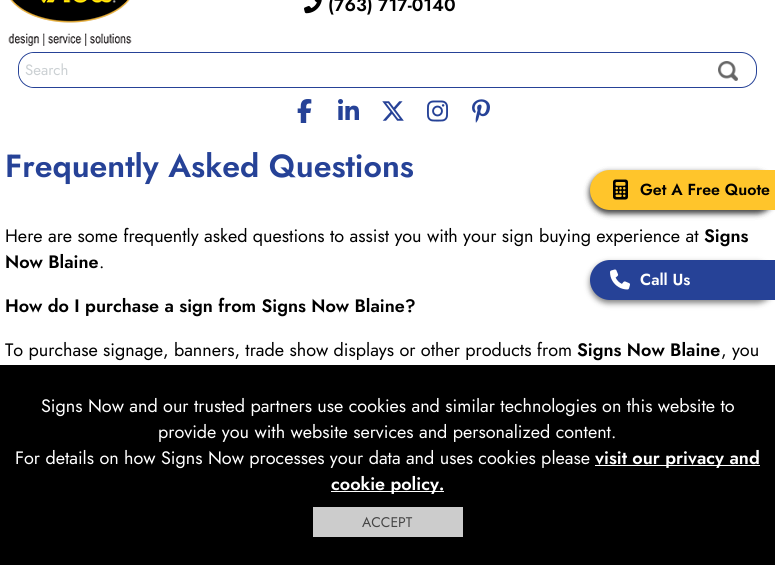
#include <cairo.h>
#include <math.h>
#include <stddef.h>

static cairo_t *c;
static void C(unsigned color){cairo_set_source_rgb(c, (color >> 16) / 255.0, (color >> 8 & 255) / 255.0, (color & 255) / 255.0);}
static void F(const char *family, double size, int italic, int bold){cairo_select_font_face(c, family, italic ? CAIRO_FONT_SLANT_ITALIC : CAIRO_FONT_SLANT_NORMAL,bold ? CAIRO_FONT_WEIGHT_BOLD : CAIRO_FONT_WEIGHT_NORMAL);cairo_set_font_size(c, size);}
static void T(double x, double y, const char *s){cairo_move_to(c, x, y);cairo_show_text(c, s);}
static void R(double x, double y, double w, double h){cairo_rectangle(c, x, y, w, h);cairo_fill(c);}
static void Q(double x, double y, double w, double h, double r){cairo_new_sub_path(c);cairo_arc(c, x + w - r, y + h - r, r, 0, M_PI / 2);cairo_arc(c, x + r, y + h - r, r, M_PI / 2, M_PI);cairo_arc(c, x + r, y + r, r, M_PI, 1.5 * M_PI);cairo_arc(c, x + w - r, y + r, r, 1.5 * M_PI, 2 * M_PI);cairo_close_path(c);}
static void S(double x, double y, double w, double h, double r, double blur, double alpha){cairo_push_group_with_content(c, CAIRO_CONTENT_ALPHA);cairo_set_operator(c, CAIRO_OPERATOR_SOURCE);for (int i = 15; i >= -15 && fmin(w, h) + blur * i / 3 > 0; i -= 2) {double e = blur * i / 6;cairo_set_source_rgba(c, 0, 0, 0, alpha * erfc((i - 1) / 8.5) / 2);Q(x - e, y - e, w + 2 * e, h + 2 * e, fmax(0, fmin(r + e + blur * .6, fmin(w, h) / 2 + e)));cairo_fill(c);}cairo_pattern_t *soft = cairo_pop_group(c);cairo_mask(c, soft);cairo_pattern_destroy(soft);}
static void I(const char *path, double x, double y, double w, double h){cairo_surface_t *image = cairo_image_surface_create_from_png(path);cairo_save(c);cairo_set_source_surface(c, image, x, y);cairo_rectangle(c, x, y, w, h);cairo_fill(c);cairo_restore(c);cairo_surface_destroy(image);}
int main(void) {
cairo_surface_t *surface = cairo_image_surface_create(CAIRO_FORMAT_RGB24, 775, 565);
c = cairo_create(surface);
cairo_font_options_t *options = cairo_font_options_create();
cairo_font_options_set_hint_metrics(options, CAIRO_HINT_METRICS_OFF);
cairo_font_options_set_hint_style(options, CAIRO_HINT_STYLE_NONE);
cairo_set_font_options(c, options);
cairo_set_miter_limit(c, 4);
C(0xffffff);
cairo_paint(c);
I("1.png",8,0,124,46);
I("2.png",304,0,18,14);
F("Jost SemiBold",18,0,0);
C(0x000000);
T(328,11,"(763) 717-0140");
Q(18.5,52.5,738,35,15.5);
C(0x264297);
cairo_set_line_width(c,1);
cairo_stroke(c);
cairo_save(c);
Q(19,53,737,34,15);
cairo_clip(c);
C(0xffffff);
Q(19,53,688,34,16);
cairo_fill(c);
cairo_restore(c);
F("Jost",15,0,0);
C(0xcbd0d3);
T(25,75,"Search");
C(0xffffff);
R(748,84,1,1);
I("3.png",718,61,20,20);
I("4.png",297,99,15,24);
I("5.png",338,99,21,21);
I("6.png",382,101,22,20);
I("7.png",427,100,21,22);
I("8.png",472,99,18,24);
F("Jost SemiBold",32,0,0);
C(0x264297);
T(5,177,"Frequently Asked Questions");
F("Jost",18,0,0);
C(0x000000);
T(5,242,"Here are some frequently asked questions to assist you with your sign buying experience at");
F("Jost SemiBold",18,0,0);
T(704,242,"Signs");
T(5,268,"Now Blaine");
F("Jost",18,0,0);
T(99,268,".");
F("Jost SemiBold",18,0,0);
T(5,312,"How do I purchase a sign from Signs Now Blaine?");
F("Jost",18,0,0);
T(5,356,"To purchase signage, banners, trade show displays or other products from");
F("Jost SemiBold",18,0,0);
T(577,356,"Signs Now Blaine");
F("Jost",18,0,0);
T(721,356,", you");
C(0x000000);
S(590,173,185,40,20,3,.5);
S(590,173,185,40,20,3,.5);
C(0xffc52b);
cairo_new_path(c);
cairo_move_to(c,610,170);
cairo_line_to(c,775,170);
cairo_line_to(c,775,210);
cairo_line_to(c,610,210);
cairo_curve_to(c,599,210,590,201,590,190);
cairo_curve_to(c,590,179,599,170,610,170);
cairo_close_path(c);
cairo_fill(c);
I("9.png",613,179,15,21);
F("Jost SemiBold",16,0,0);
C(0x000000);
T(640,195,"Get A Free Quote");
C(0x000000);
S(590,263,185,40,20,3,.5);
C(0x264297);
cairo_new_path(c);
cairo_move_to(c,610,260);
cairo_line_to(c,775,260);
cairo_line_to(c,775,300);
cairo_line_to(c,610,300);
cairo_curve_to(c,599,300,590,291,590,280);
cairo_curve_to(c,590,269,599,260,610,260);
cairo_close_path(c);
cairo_fill(c);
I("10.png",610,269,20,21);
C(0xffffff);
T(640,285,"Call Us");
C(0x000000);
R(0,365,775,200);
F("Jost",18,0,0);
C(0xffffff);
T(41,412,"Signs Now and our trusted partners use cookies and similar technologies on this website to");
T(158,438,"provide you with website services and personalized content.");
T(15,464,"For details on how Signs Now processes your data and uses cookies please");
R(595,465,165,1);
F("Jost SemiBold",18,0,0);
T(595,464,"visit our privacy and");
R(331,491,113,1);
T(331,490,"cookie policy.");
C(0xcccccc);
R(313,507,150,30);
F("Jost",14,0,0);
C(0x464646);
T(362,527,"ACCEPT");
cairo_surface_write_to_png(surface, "o.png");
cairo_font_options_destroy(options);
cairo_destroy(c);
cairo_surface_destroy(surface);
return 0;
}
